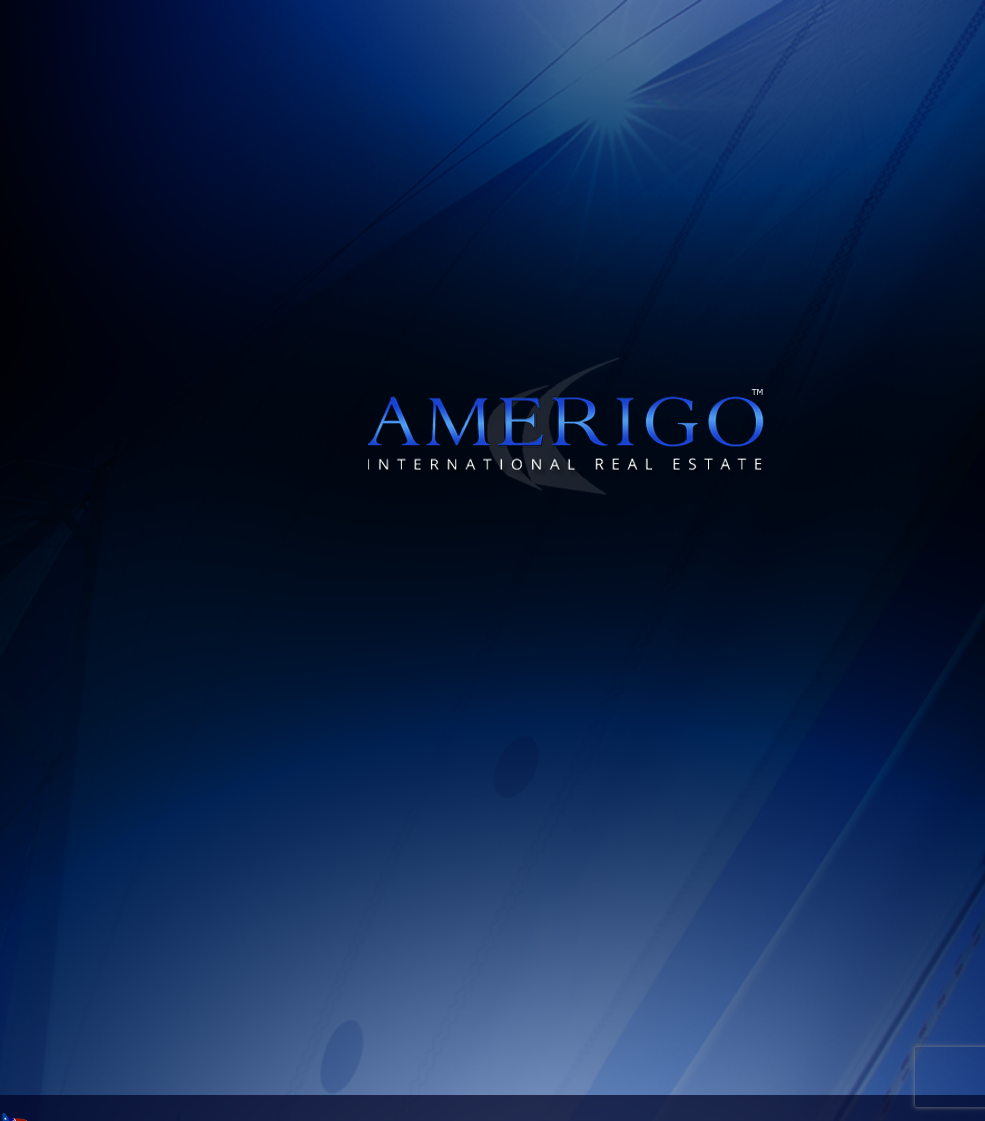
#include <cairo.h>
#include <math.h>
#include <stddef.h>

static cairo_t *c;
static void C(unsigned color){cairo_set_source_rgb(c, (color >> 16) / 255.0, (color >> 8 & 255) / 255.0, (color & 255) / 255.0);}
static void R(double x, double y, double w, double h){cairo_rectangle(c, x, y, w, h);cairo_fill(c);}
static void Q(double x, double y, double w, double h, double r){cairo_new_sub_path(c);cairo_arc(c, x + w - r, y + h - r, r, 0, M_PI / 2);cairo_arc(c, x + r, y + h - r, r, M_PI / 2, M_PI);cairo_arc(c, x + r, y + r, r, M_PI, 1.5 * M_PI);cairo_arc(c, x + w - r, y + r, r, 1.5 * M_PI, 2 * M_PI);cairo_close_path(c);}
static void S(double x, double y, double w, double h, double r, double blur, double alpha){cairo_push_group_with_content(c, CAIRO_CONTENT_ALPHA);cairo_set_operator(c, CAIRO_OPERATOR_SOURCE);for (int i = 15; i >= -15 && fmin(w, h) + blur * i / 3 > 0; i -= 2) {double e = blur * i / 6;cairo_set_source_rgba(c, 0, 0, 0, alpha * erfc((i - 1) / 8.5) / 2);Q(x - e, y - e, w + 2 * e, h + 2 * e, fmax(0, fmin(r + e + blur * .6, fmin(w, h) / 2 + e)));cairo_fill(c);}cairo_pattern_t *soft = cairo_pop_group(c);cairo_mask(c, soft);cairo_pattern_destroy(soft);}
static void I(const char *path, double x, double y, double w, double h){cairo_surface_t *image = cairo_image_surface_create_from_png(path);cairo_save(c);cairo_set_source_surface(c, image, x, y);cairo_rectangle(c, x, y, w, h);cairo_fill(c);cairo_restore(c);cairo_surface_destroy(image);}
int main(void) {
cairo_surface_t *surface = cairo_image_surface_create(CAIRO_FORMAT_RGB24, 985, 1121);
c = cairo_create(surface);
cairo_font_options_t *options = cairo_font_options_create();
cairo_font_options_set_hint_metrics(options, CAIRO_HINT_METRICS_OFF);
cairo_font_options_set_hint_style(options, CAIRO_HINT_STYLE_NONE);
cairo_set_font_options(c, options);
cairo_set_miter_limit(c, 4);
C(0xffffff);
cairo_paint(c);
I("1.png",0,0,985,1121);
I("2.png",368,357,397,138);
cairo_set_source_rgba(c,0.004,0.012,0.145,0.71);
R(0,1095,985,26);
I("3.png",2,1113,25,8);
cairo_save(c);
cairo_set_fill_rule(c,CAIRO_FILL_RULE_EVEN_ODD);
cairo_new_path(c);
cairo_move_to(c,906,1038);
cairo_line_to(c,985,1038);
cairo_line_to(c,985,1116);
cairo_line_to(c,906,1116);
cairo_close_path(c);
cairo_move_to(c,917,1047);
cairo_line_to(c,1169,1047);
cairo_curve_to(c,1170,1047,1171,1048,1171,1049);
cairo_line_to(c,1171,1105);
cairo_curve_to(c,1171,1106,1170,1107,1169,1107);
cairo_line_to(c,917,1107);
cairo_curve_to(c,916,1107,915,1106,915,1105);
cairo_line_to(c,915,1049);
cairo_curve_to(c,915,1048,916,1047,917,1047);
cairo_close_path(c);
cairo_clip(c);
C(0x808080);
S(915,1047,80,60,2,2.5,1);
cairo_restore(c);
cairo_surface_write_to_png(surface, "o.png");
cairo_font_options_destroy(options);
cairo_destroy(c);
cairo_surface_destroy(surface);
return 0;
}
